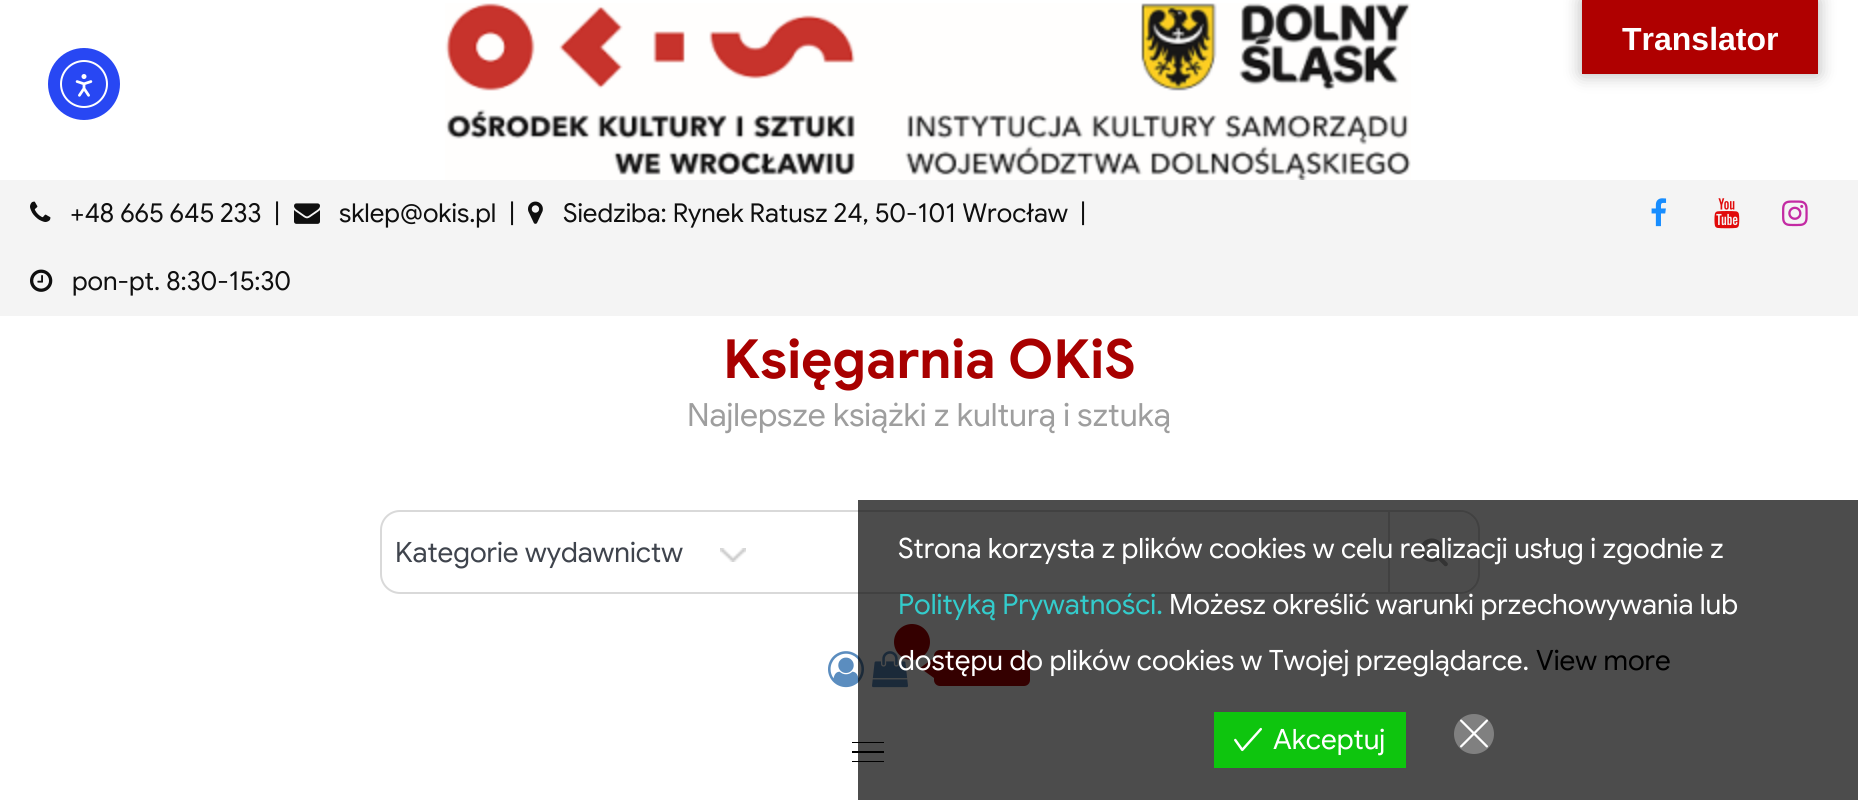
#include <cairo.h>
#include <math.h>
#include <stddef.h>

static cairo_t *c;
static void C(unsigned color){cairo_set_source_rgb(c, (color >> 16) / 255.0, (color >> 8 & 255) / 255.0, (color & 255) / 255.0);}
static void F(const char *family, double size, int italic, int bold){cairo_select_font_face(c, family, italic ? CAIRO_FONT_SLANT_ITALIC : CAIRO_FONT_SLANT_NORMAL,bold ? CAIRO_FONT_WEIGHT_BOLD : CAIRO_FONT_WEIGHT_NORMAL);cairo_set_font_size(c, size);}
static void T(double x, double y, const char *s){cairo_move_to(c, x, y);cairo_show_text(c, s);}
static void R(double x, double y, double w, double h){cairo_rectangle(c, x, y, w, h);cairo_fill(c);}
static void Q(double x, double y, double w, double h, double r){cairo_new_sub_path(c);cairo_arc(c, x + w - r, y + h - r, r, 0, M_PI / 2);cairo_arc(c, x + r, y + h - r, r, M_PI / 2, M_PI);cairo_arc(c, x + r, y + r, r, M_PI, 1.5 * M_PI);cairo_arc(c, x + w - r, y + r, r, 1.5 * M_PI, 2 * M_PI);cairo_close_path(c);}
static void S(double x, double y, double w, double h, double r, double blur, double alpha){cairo_push_group_with_content(c, CAIRO_CONTENT_ALPHA);cairo_set_operator(c, CAIRO_OPERATOR_SOURCE);for (int i = 15; i >= -15 && fmin(w, h) + blur * i / 3 > 0; i -= 2) {double e = blur * i / 6;cairo_set_source_rgba(c, 0, 0, 0, alpha * erfc((i - 1) / 8.5) / 2);Q(x - e, y - e, w + 2 * e, h + 2 * e, fmax(0, fmin(r + e + blur * .6, fmin(w, h) / 2 + e)));cairo_fill(c);}cairo_pattern_t *soft = cairo_pop_group(c);cairo_mask(c, soft);cairo_pattern_destroy(soft);}
static void I(const char *path, double x, double y, double w, double h){cairo_surface_t *image = cairo_image_surface_create_from_png(path);cairo_save(c);cairo_set_source_surface(c, image, x, y);cairo_rectangle(c, x, y, w, h);cairo_fill(c);cairo_restore(c);cairo_surface_destroy(image);}
int main(void) {
cairo_surface_t *surface = cairo_image_surface_create(CAIRO_FORMAT_RGB24, 1858, 800);
c = cairo_create(surface);
cairo_font_options_t *options = cairo_font_options_create();
cairo_font_options_set_hint_metrics(options, CAIRO_HINT_METRICS_OFF);
cairo_font_options_set_hint_style(options, CAIRO_HINT_STYLE_NONE);
cairo_set_font_options(c, options);
cairo_set_miter_limit(c, 4);
C(0xffffff);
cairo_paint(c);
C(0x000000);
S(1582,0,236,74,0,9,.3);
C(0xaf0000);
R(1582,0,236,74);
F("Liberation Sans",32,0,1);
C(0xffffff);
T(1622,50,"Translator");
I("1.png",445,3,966,177);
C(0xf4f4f4);
R(0,180,1858,136);
I("2.png",30,201,21,21);
F("Google Sans",26,0,0);
C(0x0f0f0f);
T(70,222,"+48 665 645 233");
T(274,222,"|");
I("3.png",294,203,26,21);
T(339,222,"sklep@okis.pl");
T(509,222,"|");
I("4.png",528,201,15,23);
T(563,222,"Siedziba: Rynek Ratusz 24, 50-101 Wrocław");
T(1080,222,"|");
I("5.png",30,269,23,23);
T(72,290,"pon-pt. 8:30-15:30");
I("6.png",1651,198,16,29);
I("7.png",1714,198,26,31);
I("8.png",1782,200,26,27);
F("Google Sans",54,0,1);
C(0xa80000);
T(723,378,"Księgarnia OKiS");
F("Google Sans",32,0,0);
C(0x9e9e9e);
T(687,426,"Najlepsze książki z kulturą i sztuką");
Q(381,511,1098,82,19);
C(0xd9d9d9);
cairo_stroke(c);
cairo_save(c);
Q(382,512,1096,80,18);
cairo_clip(c);
C(0xffffff);
R(764,512,712,80);
cairo_restore(c);
I("9.png",720,548,26,14);
F("Google Sans",28,0,0);
C(0x3f444d);
T(395,562,"Kategorie wydawnictw");
C(0xd9d9d9);
R(1388,512,2,80);
I("10.png",1420,538,28,29);
I("11.png",828,651,36,37);
I("12.png",872,651,36,37);
C(0xaf0000);
cairo_arc(c,912,642,18,0,2 * M_PI);
cairo_fill(c);
Q(934,650,96,36,6);
cairo_fill(c);
cairo_new_path(c);
cairo_move_to(c,934,658);
cairo_line_to(c,934,678);
cairo_line_to(c,920,668);
cairo_close_path(c);
cairo_fill(c);
C(0x000000);
R(852,742,32,1);
R(852,751,32,2);
R(852,761,32,1);
cairo_set_source_rgba(c,0,0,0,0.7);
R(858,500,1000,300);
C(0xffffff);
T(898,558,"Strona korzysta z plików cookies w celu realizacji usług i zgodnie z");
C(0x33cccc);
T(898,614,"Polityką Prywatności.");
C(0xffffff);
T(1169,614,"Możesz określić warunki przechowywania lub");
T(898,670,"dostępu do plików cookies w Twojej przeglądarce.");
C(0x000000);
T(1536,670,"View more");
C(0x0ec50e);
R(1214,712,192,56);
I("13.png",1234,727,28,25);
C(0xffffff);
T(1273,749,"Akceptuj");
C(0x808080);
cairo_new_path(c);
cairo_arc(c,1474,734,20,0,2 * M_PI);
cairo_fill(c);
I("14.png",1460,719,28,29);
C(0x2847f3);
cairo_arc(c,84,84,36,0,2 * M_PI);
cairo_fill(c);
cairo_arc(c,84,84,23,0,2 * M_PI);
C(0xffffff);
cairo_stroke(c);
I("15.png",75,74,18,23);
cairo_surface_write_to_png(surface, "o.png");
cairo_font_options_destroy(options);
cairo_destroy(c);
cairo_surface_destroy(surface);
return 0;
}
